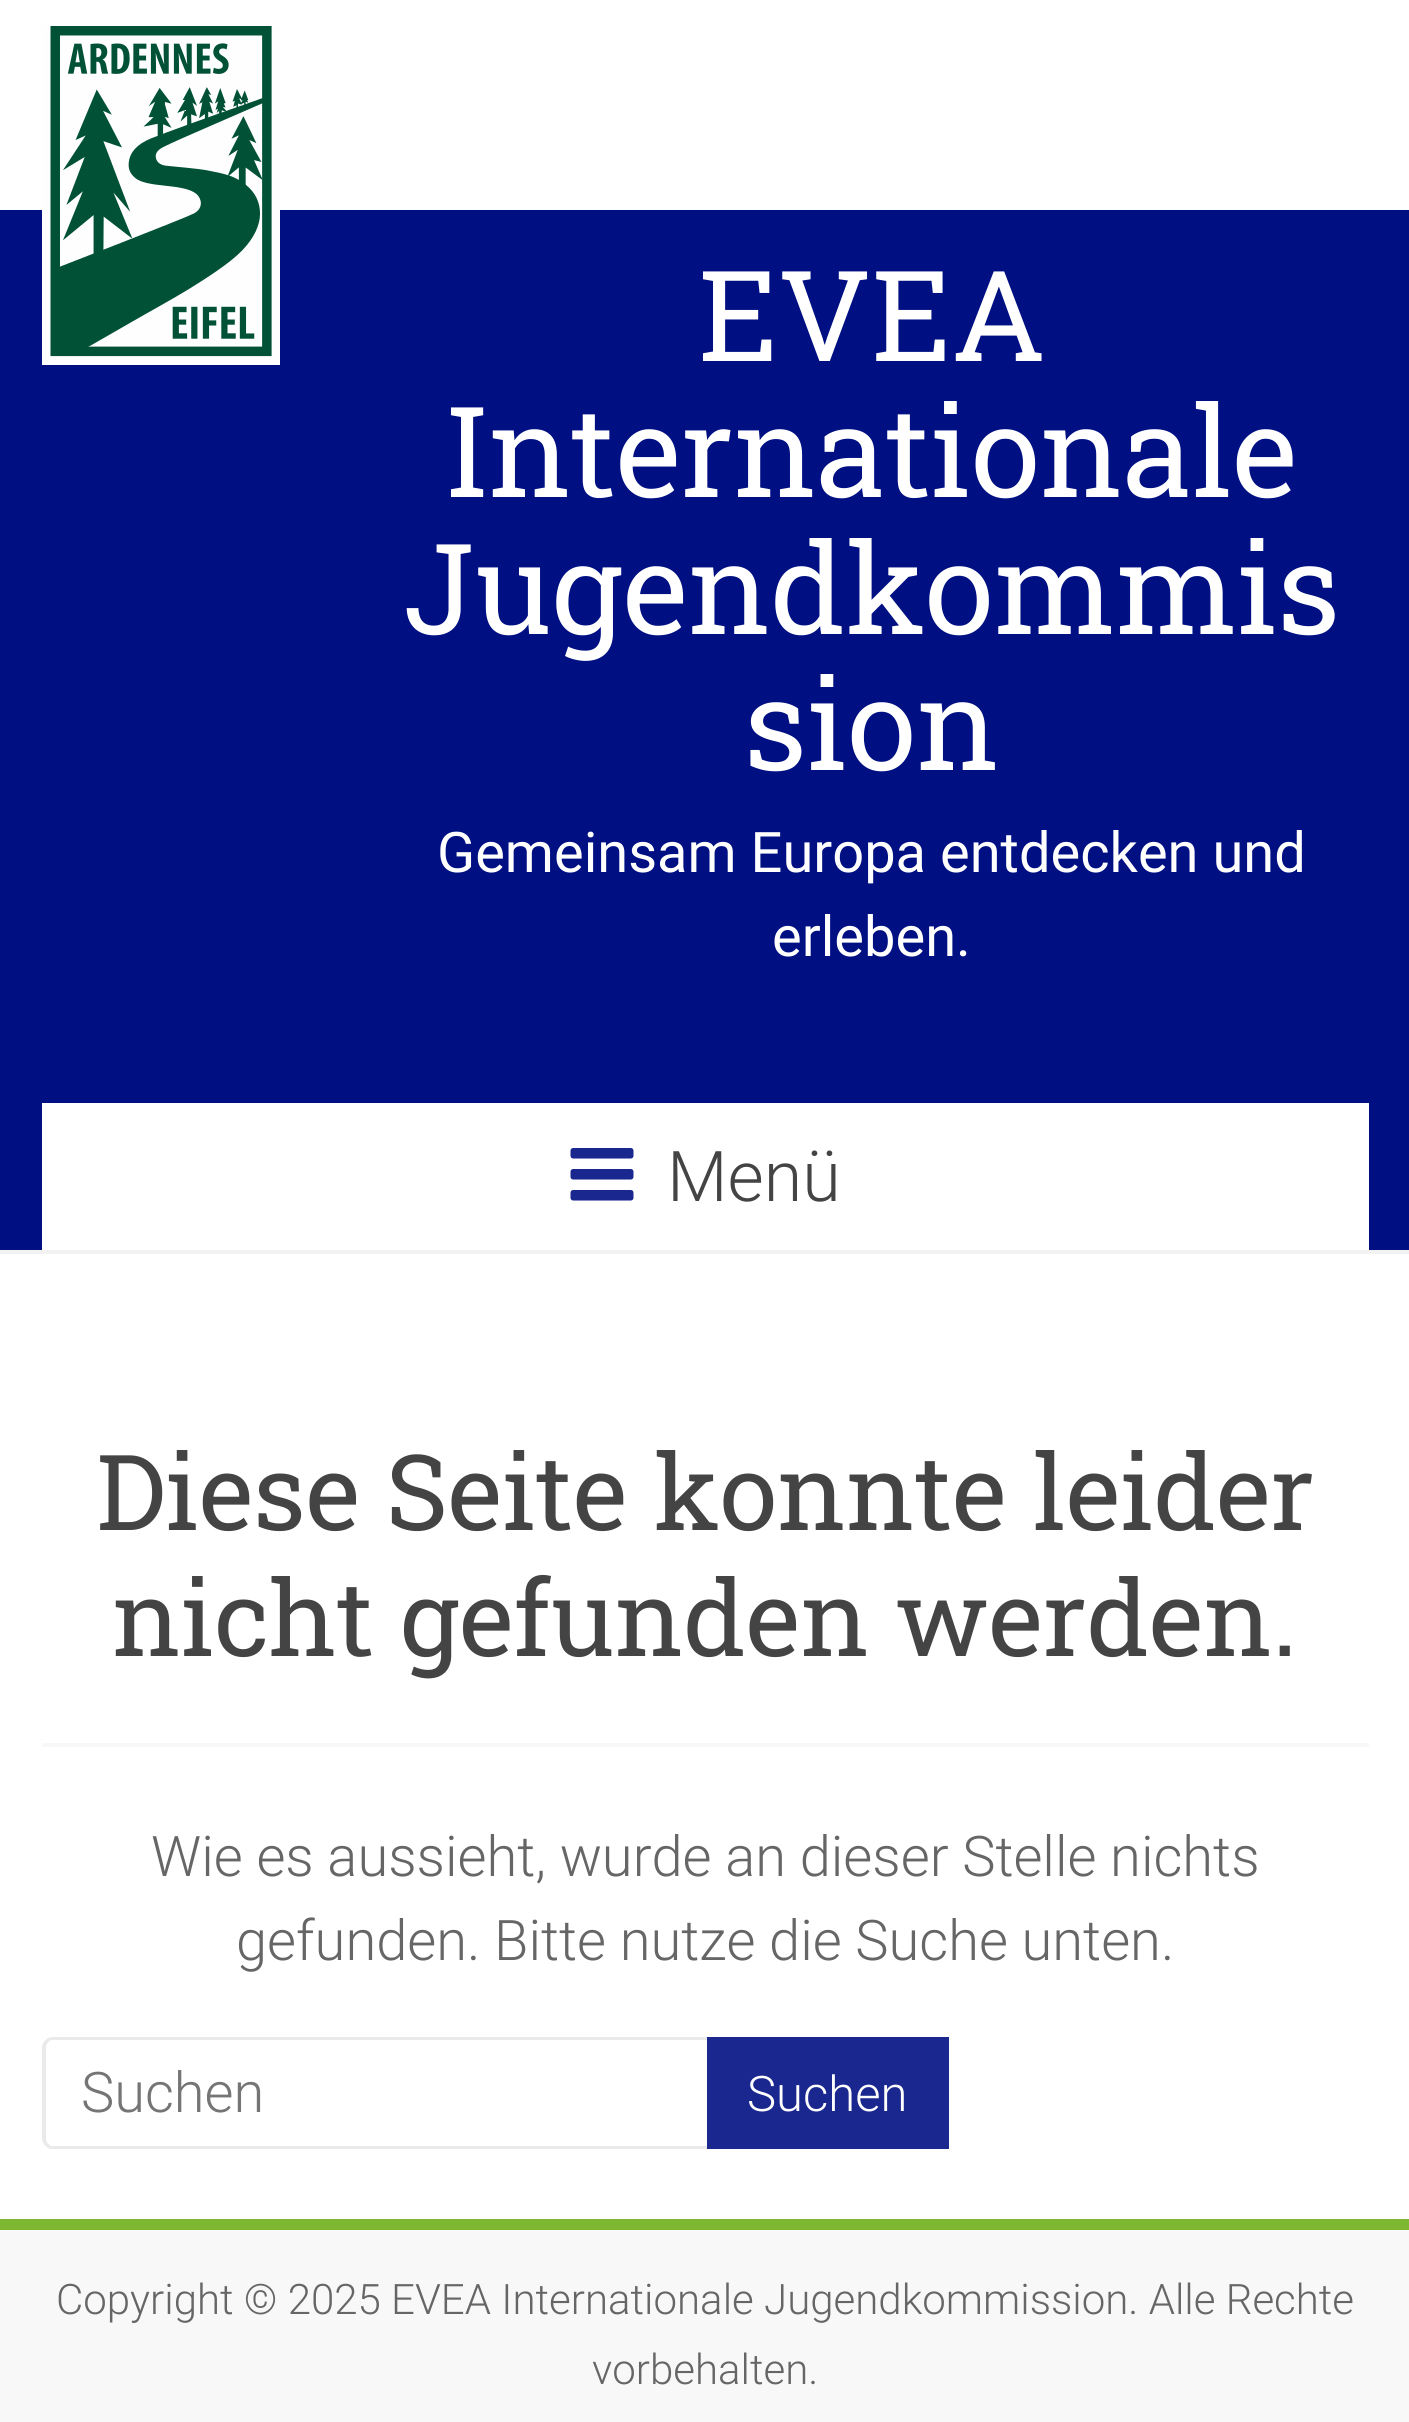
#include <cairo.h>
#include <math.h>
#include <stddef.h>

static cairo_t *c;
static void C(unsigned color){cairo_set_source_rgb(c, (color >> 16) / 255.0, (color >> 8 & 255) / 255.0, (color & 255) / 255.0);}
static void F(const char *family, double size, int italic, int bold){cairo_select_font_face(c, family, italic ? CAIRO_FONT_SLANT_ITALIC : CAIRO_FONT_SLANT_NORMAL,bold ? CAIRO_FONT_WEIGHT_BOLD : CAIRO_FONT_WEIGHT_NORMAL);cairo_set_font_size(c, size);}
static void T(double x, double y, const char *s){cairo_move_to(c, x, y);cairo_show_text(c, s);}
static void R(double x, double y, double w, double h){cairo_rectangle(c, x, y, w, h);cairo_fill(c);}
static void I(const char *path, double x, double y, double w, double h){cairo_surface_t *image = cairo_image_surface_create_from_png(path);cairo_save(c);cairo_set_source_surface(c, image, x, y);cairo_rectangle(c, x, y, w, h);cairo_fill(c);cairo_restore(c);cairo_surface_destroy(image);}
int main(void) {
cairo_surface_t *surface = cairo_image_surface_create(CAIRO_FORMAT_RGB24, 1409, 2422);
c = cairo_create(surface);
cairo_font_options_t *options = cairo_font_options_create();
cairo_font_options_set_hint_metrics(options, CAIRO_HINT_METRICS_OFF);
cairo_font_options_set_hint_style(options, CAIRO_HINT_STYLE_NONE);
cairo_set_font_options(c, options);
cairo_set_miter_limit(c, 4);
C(0xffffff);
cairo_paint(c);
C(0x000f82);
R(0,210,1409,1040);
C(0xf2f2f2);
R(0,1250,1409,4);
I("1.png",42,26,238,339);
F("Roboto Slab",126,0,0);
C(0xffffff);
T(698,361,"EVEA");
T(446,497,"Internationale");
T(403,634,"Jugendkommis");
T(744,770,"sion");
F("Roboto",56,0,0);
T(437,872,"Gemeinsam Europa entdecken und");
T(772,956,"erleben.");
R(42,1103,1327,147);
I("2.png",570,1148,64,53);
F("Roboto Light",70,0,0);
C(0x444444);
T(667,1201,"Menü");
C(0xf8f8f8);
R(42,1743,1327,4);
F("Roboto Slab",105,0,0);
C(0x444444);
T(96,1530,"Diese Seite konnte leider");
T(112,1656,"nicht gefunden werden.");
F("Roboto Light",56,0,0);
C(0x666666);
T(151,1876,"Wie es aussieht, wurde an dieser Stelle nichts");
T(236,1960,"gefunden. Bitte nutze die Suche unten.");
C(0xeaeaea);
cairo_set_fill_rule(c,CAIRO_FILL_RULE_EVEN_ODD);
cairo_new_path(c);
cairo_move_to(c,52,2037);
cairo_line_to(c,707,2037);
cairo_line_to(c,707,2149);
cairo_line_to(c,52,2149);
cairo_curve_to(c,47,2149,42,2144,42,2138);
cairo_line_to(c,42,2048);
cairo_curve_to(c,42,2042,47,2037,52,2037);
cairo_close_path(c);
cairo_move_to(c,52,2040);
cairo_line_to(c,707,2040);
cairo_line_to(c,707,2146);
cairo_line_to(c,52,2146);
cairo_curve_to(c,49,2146,46,2142,46,2138);
cairo_line_to(c,46,2048);
cairo_curve_to(c,46,2044,49,2040,52,2040);
cairo_close_path(c);
cairo_fill(c);
C(0x757575);
T(81,2112,"Suchen");
C(0x1a278e);
R(707,2037,242,112);
F("Roboto Light",49,0,0);
C(0xffffff);
T(747,2111,"Suchen");
C(0xf8f8f8);
R(0,2230,1409,192);
C(0x7eb731);
R(0,2219,1409,11);
F("Roboto Light",42,0,0);
C(0x666666);
T(56,2314,"Copyright © 2025 EVEA Internationale Jugendkommission. Alle Rechte");
T(592,2384,"vorbehalten.");
cairo_surface_write_to_png(surface, "o.png");
cairo_font_options_destroy(options);
cairo_destroy(c);
cairo_surface_destroy(surface);
return 0;
}
